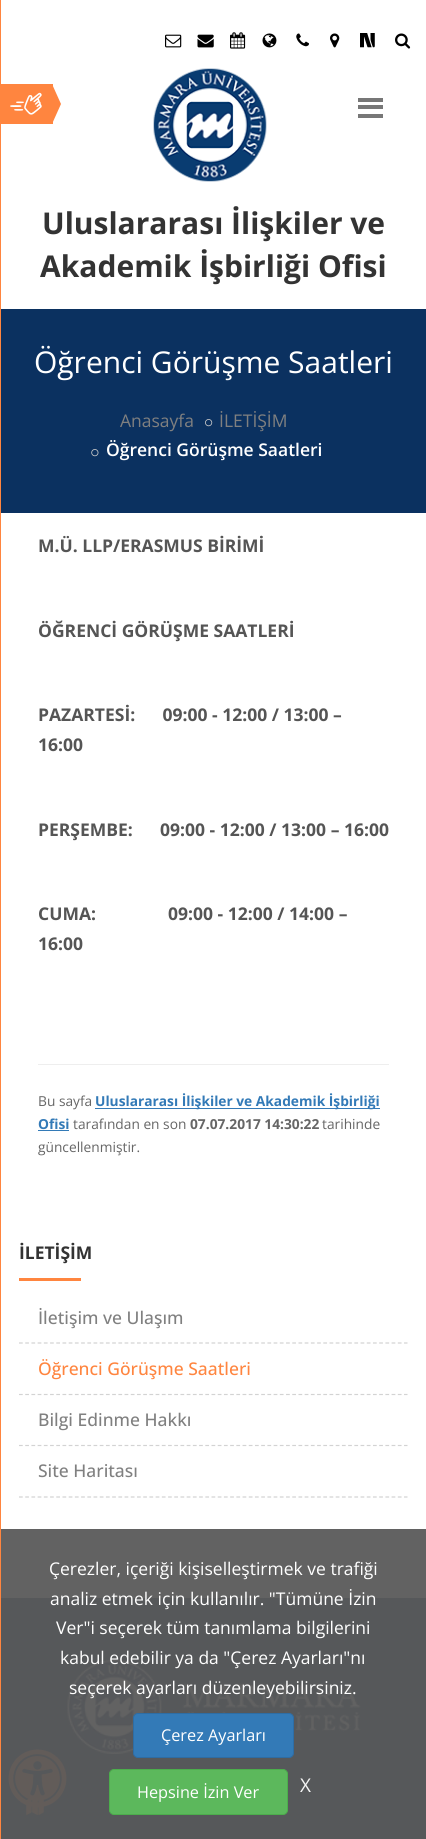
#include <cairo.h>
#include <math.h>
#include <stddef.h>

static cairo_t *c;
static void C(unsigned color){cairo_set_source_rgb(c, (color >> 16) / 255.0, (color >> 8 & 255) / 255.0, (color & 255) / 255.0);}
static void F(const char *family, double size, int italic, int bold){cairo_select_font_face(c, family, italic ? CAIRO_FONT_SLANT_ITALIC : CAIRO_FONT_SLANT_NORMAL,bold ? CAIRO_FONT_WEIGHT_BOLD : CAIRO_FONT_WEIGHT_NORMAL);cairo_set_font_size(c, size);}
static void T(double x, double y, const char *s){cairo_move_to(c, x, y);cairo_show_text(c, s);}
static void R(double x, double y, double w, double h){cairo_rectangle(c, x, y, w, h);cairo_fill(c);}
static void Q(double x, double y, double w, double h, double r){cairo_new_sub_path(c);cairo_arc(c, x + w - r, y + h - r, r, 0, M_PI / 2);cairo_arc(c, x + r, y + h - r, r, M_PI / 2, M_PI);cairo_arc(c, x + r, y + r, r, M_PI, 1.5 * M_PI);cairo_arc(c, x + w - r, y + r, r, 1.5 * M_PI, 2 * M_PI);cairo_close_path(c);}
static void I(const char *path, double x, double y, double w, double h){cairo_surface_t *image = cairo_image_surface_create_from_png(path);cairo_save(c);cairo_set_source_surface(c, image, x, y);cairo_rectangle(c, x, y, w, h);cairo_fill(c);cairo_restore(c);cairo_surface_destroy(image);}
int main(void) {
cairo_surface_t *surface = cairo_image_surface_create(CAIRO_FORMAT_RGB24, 426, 1839);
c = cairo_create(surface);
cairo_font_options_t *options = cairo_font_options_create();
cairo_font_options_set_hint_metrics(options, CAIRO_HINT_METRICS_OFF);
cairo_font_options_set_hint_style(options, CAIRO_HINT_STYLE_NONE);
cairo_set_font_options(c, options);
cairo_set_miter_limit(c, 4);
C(0xffffff);
cairo_paint(c);
C(0x626262);
R(1,1529,425,69);
C(0xff853f);
R(0,0,1,1839);
R(1,84,52,40);
I("1.png",10,92,32,23);
cairo_new_path(c);
cairo_move_to(c,52,124);
cairo_line_to(c,52,84);
cairo_line_to(c,61,104);
cairo_close_path(c);
cairo_fill(c);
I("2.png",165,34,17,14);
I("3.png",197,34,17,14);
I("4.png",230,32,16,17);
I("5.png",262,33,15,15);
I("6.png",296,33,13,14);
I("7.png",330,33,10,15);
I("8.png",360,33,15,15);
I("9.png",395,33,16,16);
C(0x777777);
R(358,98,25,4);
R(358,105,25,4);
R(358,114,25,4);
I("10.png",153,68,114,114);
F("Open Sans",30,0,1);
C(0x333333);
T(42,234,"Uluslararası İlişkiler ve");
T(40,277,"Akademik İşbirliği Ofisi");
C(0x0b3160);
R(1,309,425,204);
F("Open Sans",30,0,0);
C(0xffffff);
T(34,373,"Öğrenci Görüşme Saatleri");
F("Open Sans",17.5,0,0);
C(0x808080);
T(120,427,"Anasayfa");
I("11.png",205,419,8,8);
T(219,427,"İLETİŞİM");
I("12.png",91,449,8,8);
F("Open Sans SemiBold",17.5,0,0);
C(0xffffff);
T(106,456,"Öğrenci Görüşme Saatleri");
F("Open Sans",17.5,0,1);
C(0x555555);
T(38,552,"M.Ü. LLP/ERASMUS BİRİMİ");
T(38,637,"ÖĞRENCİ GÖRÜŞME SAATLERİ");
T(38,721,"PAZARTESİ:      09:00 - 12:00 / 13:00 –");
T(38,751,"16:00");
T(38,836,"PERŞEMBE:");
T(160,836,"09:00 - 12:00 / 13:00 – 16:00");
T(38,920,"CUMA:");
T(168,920,"09:00 - 12:00 / 14:00 –");
T(38,950,"16:00");
C(0xeeeeee);
R(38,1064,351,1);
F("Open Sans",13.75,0,0);
C(0x666666);
T(38,1106,"Bu sayfa");
C(0x337ab7);
R(95,1108,285,1);
F("Open Sans",13.75,0,1);
T(95,1106,"Uluslararası İlişkiler ve Akademik İşbirliği");
T(38,1129,"Ofisi");
R(38,1130,31,1);
F("Open Sans",13.75,0,0);
C(0x666666);
T(73,1129,"tarafından en son");
F("Open Sans",13.75,0,1);
T(190,1129,"07.07.2017 14:30:22");
F("Open Sans",13.75,0,0);
T(322,1129,"tarihinde");
T(38,1152,"güncellenmiştir.");
F("Open Sans",17.5,0,1);
C(0x333333);
T(19,1259,"İLETİŞİM");
C(0xff853f);
R(19,1278,62,3);
cairo_new_path(c);
cairo_move_to(c,19,1343);
cairo_line_to(c,407.5,1343);
C(0xd3d3d3);
cairo_set_line_width(c,1.2);
cairo_set_dash(c,(double[]){3.75,2.46},2,0);
cairo_stroke(c);
F("Open Sans Medium",17.5,0,0);
C(0x808080);
T(38,1324,"İletişim ve Ulaşım");
cairo_new_path(c);
cairo_move_to(c,19,1394.5);
cairo_line_to(c,407.5,1394.5);
C(0xd3d3d3);
cairo_stroke(c);
C(0xff853f);
T(38,1375,"Öğrenci Görüşme Saatleri");
cairo_new_path(c);
cairo_move_to(c,19,1445.5);
cairo_line_to(c,407.5,1445.5);
C(0xd3d3d3);
cairo_stroke(c);
C(0x808080);
T(38,1426,"Bilgi Edinme Hakkı");
cairo_new_path(c);
cairo_move_to(c,19,1497);
cairo_line_to(c,407.5,1497);
C(0xd3d3d3);
cairo_stroke(c);
C(0x808080);
T(38,1477,"Site Haritası");
C(0x56585a);
R(1,1598,425,241);
I("13.png",67,1659,294,95);
I("14.png",26,1798,18,17);
I("15.png",8,1749,59,59);
F("Open Sans",17.5,0,0);
C(0xffffff);
T(49,1575,"Çerezler, içeriği kişiselleştirmek ve trafiği");
T(50,1605,"analiz etmek için kullanılır. \"Tümüne İzin");
T(56,1634,"Ver\"i seçerek tüm tanımlama bilgilerini");
T(60,1664,"kabul edebilir ya da \"Çerez Ayarları\"nı");
T(69,1694,"seçerek ayarları düzenleyebilirsiniz.");
C(0x337ab7);
Q(133.5,1713.5,160,44,4.5);
cairo_fill_preserve(c);
C(0x2e6da4);
cairo_set_line_width(c,1);
cairo_set_dash(c,NULL,0,0);
cairo_stroke(c);
F("Open Sans",16.25,0,0);
C(0xffffff);
T(161,1741,"Çerez Ayarları");
C(0x5cb85c);
Q(109.5,1769.5,178,45,4.5);
cairo_fill_preserve(c);
C(0x4cae4c);
cairo_stroke(c);
C(0xffffff);
T(137,1798,"Hepsine İzin Ver");
F("Open Sans",19,0,0);
C(0xf5f5f5);
T(300,1792,"X");
cairo_surface_write_to_png(surface, "o.png");
cairo_font_options_destroy(options);
cairo_destroy(c);
cairo_surface_destroy(surface);
return 0;
}
